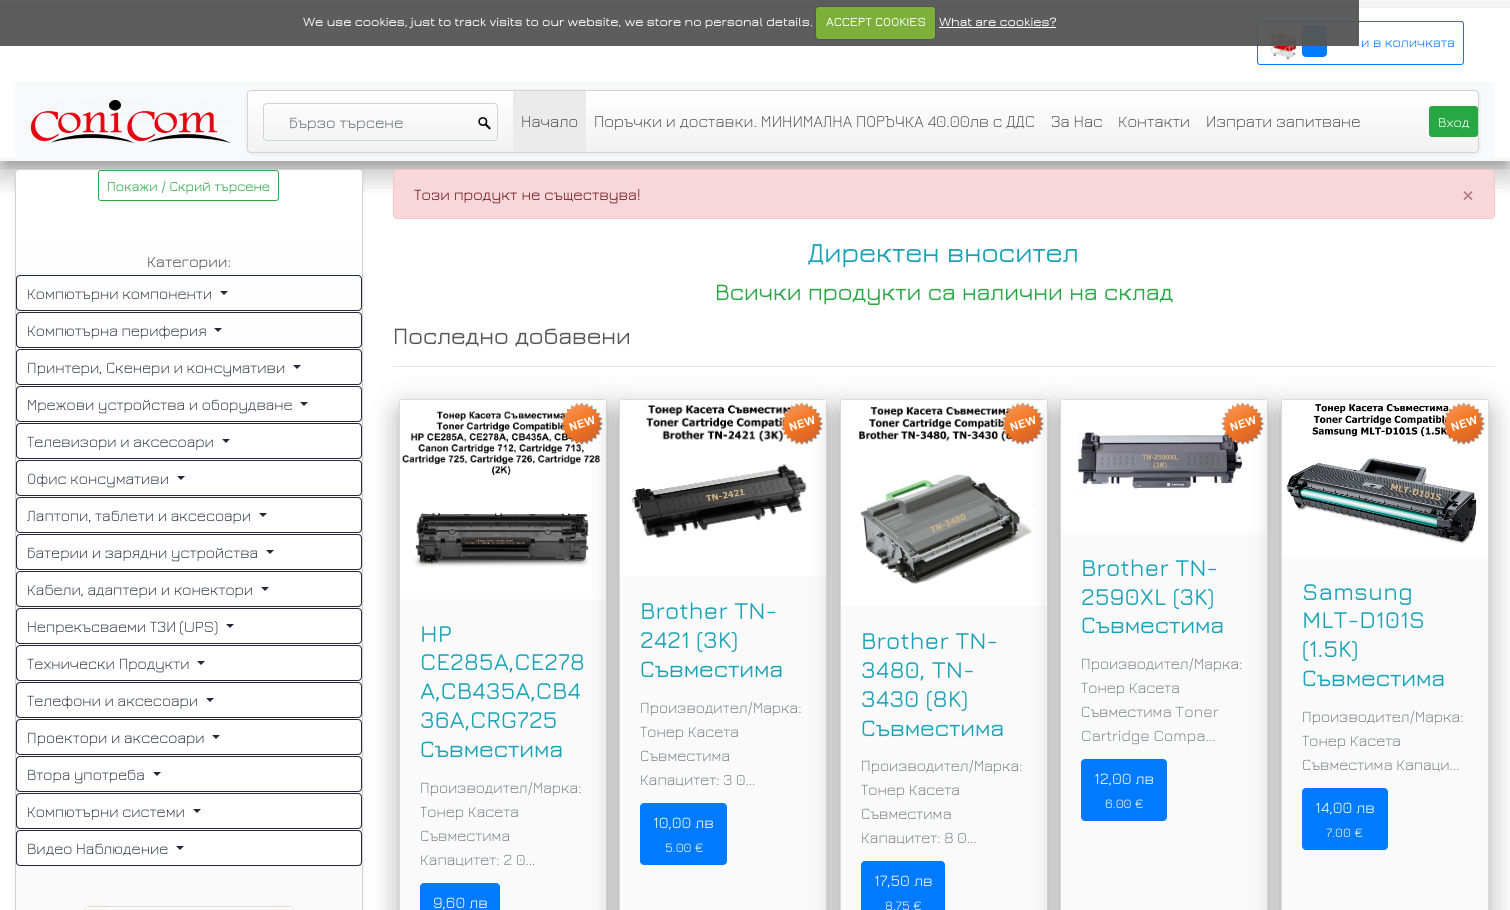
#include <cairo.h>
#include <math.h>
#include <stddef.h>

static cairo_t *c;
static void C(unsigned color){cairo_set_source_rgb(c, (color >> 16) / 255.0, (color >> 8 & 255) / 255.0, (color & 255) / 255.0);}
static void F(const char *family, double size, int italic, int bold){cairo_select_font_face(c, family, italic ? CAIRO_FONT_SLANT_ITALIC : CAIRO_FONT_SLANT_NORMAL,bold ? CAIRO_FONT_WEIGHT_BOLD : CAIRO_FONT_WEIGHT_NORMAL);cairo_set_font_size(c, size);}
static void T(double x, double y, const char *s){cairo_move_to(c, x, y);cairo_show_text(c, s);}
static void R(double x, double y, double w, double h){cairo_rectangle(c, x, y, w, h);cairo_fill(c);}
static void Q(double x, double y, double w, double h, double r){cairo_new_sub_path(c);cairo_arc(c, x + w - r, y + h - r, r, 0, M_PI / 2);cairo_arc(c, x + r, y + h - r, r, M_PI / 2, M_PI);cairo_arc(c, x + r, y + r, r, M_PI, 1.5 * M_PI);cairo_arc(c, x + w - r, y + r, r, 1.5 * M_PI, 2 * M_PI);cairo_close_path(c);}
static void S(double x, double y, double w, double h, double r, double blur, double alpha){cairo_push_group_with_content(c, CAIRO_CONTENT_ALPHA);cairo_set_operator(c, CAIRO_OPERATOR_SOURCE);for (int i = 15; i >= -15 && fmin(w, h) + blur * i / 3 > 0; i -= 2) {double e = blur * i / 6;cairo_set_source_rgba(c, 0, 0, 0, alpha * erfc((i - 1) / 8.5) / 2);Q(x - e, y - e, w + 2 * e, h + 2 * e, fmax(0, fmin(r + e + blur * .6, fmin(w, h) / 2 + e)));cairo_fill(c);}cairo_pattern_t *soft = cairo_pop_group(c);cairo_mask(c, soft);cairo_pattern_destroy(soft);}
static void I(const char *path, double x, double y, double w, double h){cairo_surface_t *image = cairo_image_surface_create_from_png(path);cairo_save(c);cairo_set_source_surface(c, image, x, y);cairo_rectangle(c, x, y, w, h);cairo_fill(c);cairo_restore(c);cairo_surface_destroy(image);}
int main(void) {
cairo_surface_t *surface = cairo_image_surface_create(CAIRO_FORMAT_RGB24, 1510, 910);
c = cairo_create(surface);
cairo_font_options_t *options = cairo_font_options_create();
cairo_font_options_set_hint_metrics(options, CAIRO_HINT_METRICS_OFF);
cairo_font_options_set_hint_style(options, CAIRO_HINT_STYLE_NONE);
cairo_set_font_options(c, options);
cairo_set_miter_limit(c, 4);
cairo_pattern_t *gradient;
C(0xffffff);
cairo_paint(c);
cairo_save(c);
cairo_rectangle(c,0,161,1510,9);
cairo_clip(c);
C(0x000000);
S(5,21,1500,143,0,5,.2);
cairo_restore(c);
cairo_save(c);
cairo_set_fill_rule(c,CAIRO_FILL_RULE_EVEN_ODD);
cairo_new_path(c);
cairo_move_to(c,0,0);
cairo_line_to(c,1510,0);
cairo_line_to(c,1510,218);
cairo_line_to(c,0,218);
cairo_close_path(c);
cairo_move_to(c,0,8);
cairo_line_to(c,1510,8);
cairo_line_to(c,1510,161);
cairo_line_to(c,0,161);
cairo_close_path(c);
cairo_clip(c);
C(0x000000);
S(-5,9,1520,163,0,15,.12);
cairo_restore(c);
cairo_save(c);
cairo_rectangle(c,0,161,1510,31);
cairo_clip(c);
C(0x000000);
S(-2,22,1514,157,0,12,.14);
cairo_restore(c);
Q(1257.5,21.5,206,43,2.5);
C(0x007bff);
cairo_set_line_width(c,1);
cairo_stroke(c);
I("1.png",1266,30,31,30);
Q(1302,25,25,32,4);
cairo_fill(c);
cairo_set_source_rgba(c,0.337,0.337,0.337,0.95);
R(0,0,1359,46);
F("Jura SemiBold",13,0,0);
C(0xffffff);
T(303,26,"We use cookies, just to track visits to our website, we store no personal details.");
C(0x000000);
S(816,7,119,32,3,1,.25);
C(0x7daf3b);
Q(816,7,119,32,3);
cairo_fill(c);
C(0xffffff);
T(826,26,"ACCEPT COOKIES");
T(939,26,"What are cookies?");
R(939,27,117,1);
F("Jura",14,0,0);
C(0x007bff);
T(1361,47,"и в количката");
cairo_save(c);
cairo_rectangle(c,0,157,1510,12);
cairo_clip(c);
C(0x000000);
S(-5,170,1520,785,0,15,.12);
cairo_restore(c);
C(0xf8f9fa);
R(15,82,1480,79);
I("2.png",31,100,200,43);
C(0x000000);
S(247,91,1232,63,4,2,.07);
cairo_save(c);
Q(247,90,1232,63,4);
cairo_clip(c);
gradient = cairo_pattern_create_linear(863,91,863,152);
cairo_pattern_add_color_stop_rgba(gradient,0,1,1,1,1);
cairo_pattern_add_color_stop_rgba(gradient,1,0.949,0.949,0.949,1);
cairo_set_source(c,gradient);
cairo_pattern_destroy(gradient);
R(247,91,1232,61);
cairo_restore(c);
Q(247.5,90.5,1231,62,3.5);
C(0xd4d4d4);
cairo_stroke(c);
I("3.png",478,117,13,13);
Q(263.5,103.5,234,37,3.5);
C(0xced4da);
cairo_stroke(c);
F("Jura",16,0,0);
C(0x6c757d);
T(289,128,"Бързо търсене");
C(0xebebeb);
R(513,91,73,61);
F("Jura Light",17,0,0);
C(0x444444);
T(521,127,"Начало");
T(594,127,"Поръчки и доставки. МИНИМАЛНА ПОРЪЧКА 40.00лв с ДДС");
T(1051,127,"За Нас");
T(1118,127,"Контакти");
T(1206,127,"Изпрати запитване");
C(0x28a745);
Q(1429.5,106.5,48,30,2.5);
cairo_fill_preserve(c);
cairo_stroke(c);
F("Jura",14,0,0);
C(0xffffff);
T(1438,127,"Вход");
C(0x000000);
S(15,170,348,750,4,2,.07);
C(0xe6e6e6);
R(393,366,1102,1);
C(0x000000);
S(394,400,218,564,9,15,.12);
S(397,413,212,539,6,12,.14);
cairo_save(c);
Q(15,169,348,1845,4);
cairo_clip(c);
gradient = cairo_pattern_create_linear(189,170,189,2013);
cairo_pattern_add_color_stop_rgba(gradient,0,1,1,1,1);
cairo_pattern_add_color_stop_rgba(gradient,1,0.949,0.949,0.949,1);
cairo_set_source(c,gradient);
cairo_pattern_destroy(gradient);
R(15,170,348,740);
cairo_restore(c);
Q(15.5,169.5,347,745,3.5);
C(0xd3d3d3);
cairo_stroke(c);
Q(98.5,170.5,180,30,2.5);
C(0x28a745);
cairo_stroke(c);
T(107,191,"Покажи / Скрий търсене");
F("Jura",16,0,0);
C(0x555555);
T(147,267,"Категории:");
C(0xdee2e6);
R(16,865,346,1);
cairo_save(c);
Q(16,275,346,36,4);
cairo_clip(c);
gradient = cairo_pattern_create_linear(361,293,-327,293);
cairo_pattern_add_color_stop_rgba(gradient,0,0.996,0.996,0.996,1);
cairo_pattern_add_color_stop_rgba(gradient,.5,0.996,0.996,0.996,1);
cairo_pattern_add_color_stop_rgba(gradient,.5,0.424,0.459,0.49,1);
cairo_pattern_add_color_stop_rgba(gradient,1,0.424,0.459,0.49,1);
cairo_set_source(c,gradient);
cairo_pattern_destroy(gradient);
cairo_new_path(c);
cairo_move_to(c,20,275);
cairo_line_to(c,361,275);
cairo_line_to(c,361,311);
cairo_line_to(c,20,311);
cairo_curve_to(c,18,311,16,309,16,307);
cairo_line_to(c,16,279);
cairo_curve_to(c,16,277,18,275,20,275);
cairo_close_path(c);
cairo_fill(c);
cairo_restore(c);
Q(16.5,275.5,345,35,3.5);
C(0x252839);
cairo_stroke(c);
F("Jura Light",16,0,0);
T(27,299,"Компютърни компоненти");
cairo_new_path(c);
cairo_move_to(c,220,291);
cairo_line_to(c,228,291);
cairo_line_to(c,224,295);
cairo_close_path(c);
cairo_fill(c);
cairo_save(c);
Q(16,312,346,36,4);
cairo_clip(c);
gradient = cairo_pattern_create_linear(361,330,-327,330);
cairo_pattern_add_color_stop_rgba(gradient,0,0.996,0.996,0.996,1);
cairo_pattern_add_color_stop_rgba(gradient,.5,0.996,0.996,0.996,1);
cairo_pattern_add_color_stop_rgba(gradient,.5,0.424,0.459,0.49,1);
cairo_pattern_add_color_stop_rgba(gradient,1,0.424,0.459,0.49,1);
cairo_set_source(c,gradient);
cairo_pattern_destroy(gradient);
cairo_new_path(c);
cairo_move_to(c,20,312);
cairo_line_to(c,361,312);
cairo_line_to(c,361,348);
cairo_line_to(c,20,348);
cairo_curve_to(c,18,348,16,346,16,344);
cairo_line_to(c,16,316);
cairo_curve_to(c,16,314,18,312,20,312);
cairo_close_path(c);
cairo_fill(c);
cairo_restore(c);
Q(16.5,312.5,345,35,3.5);
cairo_stroke(c);
T(27,336,"Компютърна периферия");
cairo_new_path(c);
cairo_move_to(c,214,328);
cairo_line_to(c,222,328);
cairo_line_to(c,218,332);
cairo_close_path(c);
cairo_fill(c);
cairo_save(c);
Q(16,349,346,36,4);
cairo_clip(c);
gradient = cairo_pattern_create_linear(361,367,-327,367);
cairo_pattern_add_color_stop_rgba(gradient,0,1,1,1,1);
cairo_pattern_add_color_stop_rgba(gradient,.5,1,1,1,1);
cairo_pattern_add_color_stop_rgba(gradient,.5,0.424,0.459,0.49,1);
cairo_pattern_add_color_stop_rgba(gradient,1,0.424,0.459,0.49,1);
cairo_set_source(c,gradient);
cairo_pattern_destroy(gradient);
cairo_new_path(c);
cairo_move_to(c,20,349);
cairo_line_to(c,361,349);
cairo_line_to(c,361,385);
cairo_line_to(c,20,385);
cairo_curve_to(c,18,385,16,383,16,381);
cairo_line_to(c,16,353);
cairo_curve_to(c,16,351,18,349,20,349);
cairo_close_path(c);
cairo_fill(c);
cairo_restore(c);
Q(16.5,349.5,345,35,3.5);
cairo_stroke(c);
T(27,373,"Принтери, Скенери и консумативи");
cairo_new_path(c);
cairo_move_to(c,293,365);
cairo_line_to(c,301,365);
cairo_line_to(c,297,369);
cairo_close_path(c);
cairo_fill(c);
cairo_save(c);
Q(16,386,346,36,4);
cairo_clip(c);
gradient = cairo_pattern_create_linear(361,404,-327,404);
cairo_pattern_add_color_stop_rgba(gradient,0,1,1,1,1);
cairo_pattern_add_color_stop_rgba(gradient,.5,1,1,1,1);
cairo_pattern_add_color_stop_rgba(gradient,.5,0.424,0.459,0.49,1);
cairo_pattern_add_color_stop_rgba(gradient,1,0.424,0.459,0.49,1);
cairo_set_source(c,gradient);
cairo_pattern_destroy(gradient);
cairo_new_path(c);
cairo_move_to(c,20,386);
cairo_line_to(c,361,386);
cairo_line_to(c,361,422);
cairo_line_to(c,20,422);
cairo_curve_to(c,18,422,16,420,16,418);
cairo_line_to(c,16,390);
cairo_curve_to(c,16,388,18,386,20,386);
cairo_close_path(c);
cairo_fill(c);
cairo_restore(c);
Q(16.5,386.5,345,35,3.5);
cairo_stroke(c);
T(27,410,"Мрежови устройства и оборудване");
cairo_new_path(c);
cairo_move_to(c,300,402);
cairo_line_to(c,308,402);
cairo_line_to(c,304,406);
cairo_close_path(c);
cairo_fill(c);
cairo_save(c);
Q(16,423,346,36,4);
cairo_clip(c);
gradient = cairo_pattern_create_linear(361,441,-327,441);
cairo_pattern_add_color_stop_rgba(gradient,0,1,1,1,1);
cairo_pattern_add_color_stop_rgba(gradient,.5,1,1,1,1);
cairo_pattern_add_color_stop_rgba(gradient,.5,0.424,0.459,0.49,1);
cairo_pattern_add_color_stop_rgba(gradient,1,0.424,0.459,0.49,1);
cairo_set_source(c,gradient);
cairo_pattern_destroy(gradient);
cairo_new_path(c);
cairo_move_to(c,20,423);
cairo_line_to(c,361,423);
cairo_line_to(c,361,459);
cairo_line_to(c,20,459);
cairo_curve_to(c,18,459,16,457,16,455);
cairo_line_to(c,16,427);
cairo_curve_to(c,16,425,18,423,20,423);
cairo_close_path(c);
cairo_fill(c);
cairo_restore(c);
Q(16.5,423.5,345,35,3.5);
cairo_stroke(c);
T(27,447,"Телевизори и аксесоари");
cairo_new_path(c);
cairo_move_to(c,222,439);
cairo_line_to(c,230,439);
cairo_line_to(c,226,443);
cairo_close_path(c);
cairo_fill(c);
cairo_save(c);
Q(16,460,346,36,4);
cairo_clip(c);
gradient = cairo_pattern_create_linear(361,478,-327,478);
cairo_pattern_add_color_stop_rgba(gradient,0,1,1,1,1);
cairo_pattern_add_color_stop_rgba(gradient,.5,1,1,1,1);
cairo_pattern_add_color_stop_rgba(gradient,.5,0.424,0.459,0.49,1);
cairo_pattern_add_color_stop_rgba(gradient,1,0.424,0.459,0.49,1);
cairo_set_source(c,gradient);
cairo_pattern_destroy(gradient);
cairo_new_path(c);
cairo_move_to(c,20,460);
cairo_line_to(c,361,460);
cairo_line_to(c,361,496);
cairo_line_to(c,20,496);
cairo_curve_to(c,18,496,16,494,16,492);
cairo_line_to(c,16,464);
cairo_curve_to(c,16,462,18,460,20,460);
cairo_close_path(c);
cairo_fill(c);
cairo_restore(c);
Q(16.5,460.5,345,35,3.5);
cairo_stroke(c);
T(27,484,"Офис консумативи");
cairo_new_path(c);
cairo_move_to(c,177,476);
cairo_line_to(c,185,476);
cairo_line_to(c,181,480);
cairo_close_path(c);
cairo_fill(c);
cairo_save(c);
Q(16,497,346,36,4);
cairo_clip(c);
gradient = cairo_pattern_create_linear(361,515,-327,515);
cairo_pattern_add_color_stop_rgba(gradient,0,1,1,1,1);
cairo_pattern_add_color_stop_rgba(gradient,.5,1,1,1,1);
cairo_pattern_add_color_stop_rgba(gradient,.5,0.424,0.459,0.49,1);
cairo_pattern_add_color_stop_rgba(gradient,1,0.424,0.459,0.49,1);
cairo_set_source(c,gradient);
cairo_pattern_destroy(gradient);
cairo_new_path(c);
cairo_move_to(c,20,497);
cairo_line_to(c,361,497);
cairo_line_to(c,361,533);
cairo_line_to(c,20,533);
cairo_curve_to(c,18,533,16,531,16,529);
cairo_line_to(c,16,501);
cairo_curve_to(c,16,499,18,497,20,497);
cairo_close_path(c);
cairo_fill(c);
cairo_restore(c);
Q(16.5,497.5,345,35,3.5);
cairo_stroke(c);
T(27,521,"Лаптопи, таблети и аксесоари");
cairo_new_path(c);
cairo_move_to(c,259,513);
cairo_line_to(c,267,513);
cairo_line_to(c,263,517);
cairo_close_path(c);
cairo_fill(c);
cairo_save(c);
Q(16,534,346,36,4);
cairo_clip(c);
gradient = cairo_pattern_create_linear(361,552,-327,552);
cairo_pattern_add_color_stop_rgba(gradient,0,1,1,1,1);
cairo_pattern_add_color_stop_rgba(gradient,.5,1,1,1,1);
cairo_pattern_add_color_stop_rgba(gradient,.5,0.424,0.459,0.49,1);
cairo_pattern_add_color_stop_rgba(gradient,1,0.424,0.459,0.49,1);
cairo_set_source(c,gradient);
cairo_pattern_destroy(gradient);
cairo_new_path(c);
cairo_move_to(c,20,534);
cairo_line_to(c,361,534);
cairo_line_to(c,361,570);
cairo_line_to(c,20,570);
cairo_curve_to(c,18,570,16,568,16,566);
cairo_line_to(c,16,538);
cairo_curve_to(c,16,536,18,534,20,534);
cairo_close_path(c);
cairo_fill(c);
cairo_restore(c);
Q(16.5,534.5,345,35,3.5);
cairo_stroke(c);
T(27,558,"Батерии и зарядни устройства");
cairo_new_path(c);
cairo_move_to(c,266,550);
cairo_line_to(c,274,550);
cairo_line_to(c,270,554);
cairo_close_path(c);
cairo_fill(c);
cairo_save(c);
Q(16,571,346,36,4);
cairo_clip(c);
gradient = cairo_pattern_create_linear(361,589,-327,589);
cairo_pattern_add_color_stop_rgba(gradient,0,1,1,1,1);
cairo_pattern_add_color_stop_rgba(gradient,.5,1,1,1,1);
cairo_pattern_add_color_stop_rgba(gradient,.5,0.424,0.459,0.49,1);
cairo_pattern_add_color_stop_rgba(gradient,1,0.424,0.459,0.49,1);
cairo_set_source(c,gradient);
cairo_pattern_destroy(gradient);
cairo_new_path(c);
cairo_move_to(c,20,571);
cairo_line_to(c,361,571);
cairo_line_to(c,361,607);
cairo_line_to(c,20,607);
cairo_curve_to(c,18,607,16,605,16,603);
cairo_line_to(c,16,575);
cairo_curve_to(c,16,573,18,571,20,571);
cairo_close_path(c);
cairo_fill(c);
cairo_restore(c);
Q(16.5,571.5,345,35,3.5);
cairo_stroke(c);
T(27,595,"Кабели, адаптери и конектори");
cairo_new_path(c);
cairo_move_to(c,261,587);
cairo_line_to(c,269,587);
cairo_line_to(c,265,591);
cairo_close_path(c);
cairo_fill(c);
cairo_save(c);
Q(16,608,346,36,4);
cairo_clip(c);
gradient = cairo_pattern_create_linear(361,626,-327,626);
cairo_pattern_add_color_stop_rgba(gradient,0,1,1,1,1);
cairo_pattern_add_color_stop_rgba(gradient,.5,1,1,1,1);
cairo_pattern_add_color_stop_rgba(gradient,.5,0.424,0.459,0.49,1);
cairo_pattern_add_color_stop_rgba(gradient,1,0.424,0.459,0.49,1);
cairo_set_source(c,gradient);
cairo_pattern_destroy(gradient);
cairo_new_path(c);
cairo_move_to(c,20,608);
cairo_line_to(c,361,608);
cairo_line_to(c,361,644);
cairo_line_to(c,20,644);
cairo_curve_to(c,18,644,16,642,16,640);
cairo_line_to(c,16,612);
cairo_curve_to(c,16,610,18,608,20,608);
cairo_close_path(c);
cairo_fill(c);
cairo_restore(c);
Q(16.5,608.5,345,35,3.5);
cairo_stroke(c);
T(27,632,"Непрекъсваеми ТЗИ (UPS)");
cairo_new_path(c);
cairo_move_to(c,226,624);
cairo_line_to(c,234,624);
cairo_line_to(c,230,628);
cairo_close_path(c);
cairo_fill(c);
cairo_save(c);
Q(16,645,346,36,4);
cairo_clip(c);
gradient = cairo_pattern_create_linear(361,663,-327,663);
cairo_pattern_add_color_stop_rgba(gradient,0,1,1,1,1);
cairo_pattern_add_color_stop_rgba(gradient,.5,1,1,1,1);
cairo_pattern_add_color_stop_rgba(gradient,.5,0.424,0.459,0.49,1);
cairo_pattern_add_color_stop_rgba(gradient,1,0.424,0.459,0.49,1);
cairo_set_source(c,gradient);
cairo_pattern_destroy(gradient);
cairo_new_path(c);
cairo_move_to(c,20,645);
cairo_line_to(c,361,645);
cairo_line_to(c,361,681);
cairo_line_to(c,20,681);
cairo_curve_to(c,18,681,16,679,16,677);
cairo_line_to(c,16,649);
cairo_curve_to(c,16,647,18,645,20,645);
cairo_close_path(c);
cairo_fill(c);
cairo_restore(c);
Q(16.5,645.5,345,35,3.5);
cairo_stroke(c);
T(27,669,"Технически Продукти");
cairo_new_path(c);
cairo_move_to(c,197,661);
cairo_line_to(c,205,661);
cairo_line_to(c,201,665);
cairo_close_path(c);
cairo_fill(c);
cairo_save(c);
Q(16,682,346,36,4);
cairo_clip(c);
gradient = cairo_pattern_create_linear(361,700,-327,700);
cairo_pattern_add_color_stop_rgba(gradient,0,1,1,1,1);
cairo_pattern_add_color_stop_rgba(gradient,.5,1,1,1,1);
cairo_pattern_add_color_stop_rgba(gradient,.5,0.424,0.459,0.49,1);
cairo_pattern_add_color_stop_rgba(gradient,1,0.424,0.459,0.49,1);
cairo_set_source(c,gradient);
cairo_pattern_destroy(gradient);
cairo_new_path(c);
cairo_move_to(c,20,682);
cairo_line_to(c,361,682);
cairo_line_to(c,361,718);
cairo_line_to(c,20,718);
cairo_curve_to(c,18,718,16,716,16,714);
cairo_line_to(c,16,686);
cairo_curve_to(c,16,684,18,682,20,682);
cairo_close_path(c);
cairo_fill(c);
cairo_restore(c);
Q(16.5,682.5,345,35,3.5);
cairo_stroke(c);
T(27,706,"Телефони и аксесоари");
cairo_new_path(c);
cairo_move_to(c,206,698);
cairo_line_to(c,214,698);
cairo_line_to(c,210,702);
cairo_close_path(c);
cairo_fill(c);
cairo_save(c);
Q(16,719,346,36,4);
cairo_clip(c);
gradient = cairo_pattern_create_linear(361,737,-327,737);
cairo_pattern_add_color_stop_rgba(gradient,0,1,1,1,1);
cairo_pattern_add_color_stop_rgba(gradient,.5,1,1,1,1);
cairo_pattern_add_color_stop_rgba(gradient,.5,0.424,0.459,0.49,1);
cairo_pattern_add_color_stop_rgba(gradient,1,0.424,0.459,0.49,1);
cairo_set_source(c,gradient);
cairo_pattern_destroy(gradient);
cairo_new_path(c);
cairo_move_to(c,20,719);
cairo_line_to(c,361,719);
cairo_line_to(c,361,755);
cairo_line_to(c,20,755);
cairo_curve_to(c,18,755,16,753,16,751);
cairo_line_to(c,16,723);
cairo_curve_to(c,16,721,18,719,20,719);
cairo_close_path(c);
cairo_fill(c);
cairo_restore(c);
Q(16.5,719.5,345,35,3.5);
cairo_stroke(c);
T(27,743,"Проектори и аксесоари");
cairo_new_path(c);
cairo_move_to(c,212,735);
cairo_line_to(c,220,735);
cairo_line_to(c,216,739);
cairo_close_path(c);
cairo_fill(c);
cairo_save(c);
Q(16,756,346,36,4);
cairo_clip(c);
gradient = cairo_pattern_create_linear(361,774,-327,774);
cairo_pattern_add_color_stop_rgba(gradient,0,1,1,1,1);
cairo_pattern_add_color_stop_rgba(gradient,.5,1,1,1,1);
cairo_pattern_add_color_stop_rgba(gradient,.5,0.424,0.459,0.49,1);
cairo_pattern_add_color_stop_rgba(gradient,1,0.424,0.459,0.49,1);
cairo_set_source(c,gradient);
cairo_pattern_destroy(gradient);
cairo_new_path(c);
cairo_move_to(c,20,756);
cairo_line_to(c,361,756);
cairo_line_to(c,361,792);
cairo_line_to(c,20,792);
cairo_curve_to(c,18,792,16,790,16,788);
cairo_line_to(c,16,760);
cairo_curve_to(c,16,758,18,756,20,756);
cairo_close_path(c);
cairo_fill(c);
cairo_restore(c);
Q(16.5,756.5,345,35,3.5);
cairo_stroke(c);
T(27,780,"Втора употреба");
cairo_new_path(c);
cairo_move_to(c,153,772);
cairo_line_to(c,161,772);
cairo_line_to(c,157,776);
cairo_close_path(c);
cairo_fill(c);
cairo_save(c);
Q(16,793,346,36,4);
cairo_clip(c);
gradient = cairo_pattern_create_linear(361,811,-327,811);
cairo_pattern_add_color_stop_rgba(gradient,0,1,1,1,1);
cairo_pattern_add_color_stop_rgba(gradient,.5,1,1,1,1);
cairo_pattern_add_color_stop_rgba(gradient,.5,0.424,0.459,0.49,1);
cairo_pattern_add_color_stop_rgba(gradient,1,0.424,0.459,0.49,1);
cairo_set_source(c,gradient);
cairo_pattern_destroy(gradient);
cairo_new_path(c);
cairo_move_to(c,20,793);
cairo_line_to(c,361,793);
cairo_line_to(c,361,829);
cairo_line_to(c,20,829);
cairo_curve_to(c,18,829,16,827,16,825);
cairo_line_to(c,16,797);
cairo_curve_to(c,16,795,18,793,20,793);
cairo_close_path(c);
cairo_fill(c);
cairo_restore(c);
Q(16.5,793.5,345,35,3.5);
cairo_stroke(c);
T(27,817,"Компютърни системи");
cairo_new_path(c);
cairo_move_to(c,193,809);
cairo_line_to(c,201,809);
cairo_line_to(c,197,813);
cairo_close_path(c);
cairo_fill(c);
C(0xffffff);
Q(16,830,346,36,4);
cairo_fill(c);
cairo_save(c);
Q(16,830,346,36,4);
cairo_clip(c);
gradient = cairo_pattern_create_linear(361,848,-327,848);
cairo_pattern_add_color_stop_rgba(gradient,0,0,0,0,0);
cairo_pattern_add_color_stop_rgba(gradient,.5,0.424,0.459,0.49,0);
cairo_pattern_add_color_stop_rgba(gradient,.5,0.424,0.459,0.49,1);
cairo_pattern_add_color_stop_rgba(gradient,1,0.424,0.459,0.49,1);
cairo_set_source(c,gradient);
cairo_pattern_destroy(gradient);
cairo_new_path(c);
cairo_move_to(c,20,830);
cairo_line_to(c,361,830);
cairo_line_to(c,361,866);
cairo_line_to(c,20,866);
cairo_curve_to(c,18,866,16,864,16,862);
cairo_line_to(c,16,834);
cairo_curve_to(c,16,832,18,830,20,830);
cairo_close_path(c);
cairo_fill(c);
cairo_restore(c);
Q(16.5,830.5,345,35,3.5);
C(0x252839);
cairo_stroke(c);
T(27,854,"Видео Наблюдение");
cairo_new_path(c);
cairo_move_to(c,176,846);
cairo_line_to(c,184,846);
cairo_line_to(c,180,850);
cairo_close_path(c);
cairo_fill(c);
Q(85.5,906.5,207,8,3.5);
C(0xdbdbdb);
cairo_stroke(c);
I("4.png",86,907,206,3);
C(0xf8d7da);
Q(393.5,169.5,1101,49,3.5);
cairo_fill_preserve(c);
C(0xf5c6cb);
cairo_stroke(c);
F("Jura",16,0,0);
C(0x721c24);
T(414,200,"Този продукт не съществува!");
F("Jura SemiBold",24,0,0);
C(0xb57a7f);
T(1462,201,"×");
F("Jura Medium",28,0,0);
C(0x17a2b8);
T(808,262,"Директен вносител");
F("Jura Medium",24,0,0);
C(0x28a745);
T(715,300,"Всички продукти са налични на склад");
C(0x555555);
T(393,344,"Последно добавени");
C(0x000000);
S(404,412,198,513,0,5,.2);
C(0xfafafa);
Q(399.5,399.5,207,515,3.5);
cairo_fill_preserve(c);
C(0xdbdbdb);
cairo_stroke(c);
I("5.png",400,400,206,199);
I("6.png",560,402,43,43);
C(0x17a2b8);
T(420,642,"HP");
T(420,670,"CE285A,CE278");
T(420,699,"A,CB435A,CB4");
T(420,728,"36A,CRG725");
T(420,757,"Съвместима");
F("Jura Light",16,0,0);
C(0x6c757d);
T(420,793,"Производител/Марка:");
T(420,817,"Тонер Касета");
T(420,841,"Съвместима");
T(420,865,"Капацитет: 2 0...");
C(0x007bff);
Q(420.5,883.5,79,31,3.5);
cairo_fill_preserve(c);
cairo_stroke(c);
F("Jura",16,0,0);
C(0xffffff);
T(433,908,"9,60 лв");
C(0x000000);
S(624,412,198,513,0,5,.2);
S(614,400,218,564,9,15,.12);
S(617,413,212,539,6,12,.14);
C(0xfafafa);
Q(619.5,399.5,207,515,3.5);
cairo_fill_preserve(c);
C(0xdbdbdb);
cairo_stroke(c);
I("7.png",620,400,206,176);
I("8.png",780,402,43,43);
F("Jura Medium",24,0,0);
C(0x17a2b8);
T(640,619,"Brother TN-");
T(640,648,"2421 (3K)");
T(640,677,"Съвместима");
F("Jura Light",16,0,0);
C(0x6c757d);
T(640,713,"Производител/Марка:");
T(640,737,"Тонер Касета");
T(640,761,"Съвместима");
T(640,785,"Капацитет: 3 0...");
C(0x007bff);
Q(640.5,803.5,86,61,3.5);
cairo_fill_preserve(c);
cairo_stroke(c);
F("Jura",16,0,0);
C(0xffffff);
T(653,828,"10,00 лв");
F("Jura",13,0,0);
T(665,852,"5.00 €");
C(0x000000);
S(845,412,198,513,0,5,.2);
S(835,400,218,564,9,15,.12);
S(838,413,212,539,6,12,.14);
C(0xfafafa);
Q(840.5,399.5,207,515,3.5);
cairo_fill_preserve(c);
C(0xdbdbdb);
cairo_stroke(c);
I("9.png",841,400,206,206);
I("10.png",1001,402,43,43);
F("Jura Medium",24,0,0);
C(0x17a2b8);
T(861,649,"Brother TN-");
T(861,678,"3480, TN-");
T(861,707,"3430 (8K)");
T(861,736,"Съвместима");
F("Jura Light",16,0,0);
C(0x6c757d);
T(861,771,"Производител/Марка:");
T(861,795,"Тонер Касета");
T(861,819,"Съвместимa");
T(861,843,"Капацитет: 8 0...");
C(0x007bff);
Q(861.5,861.5,83,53,3.5);
cairo_fill_preserve(c);
cairo_stroke(c);
F("Jura",16,0,0);
C(0xffffff);
T(874,886,"17,50 лв");
F("Jura",13,0,0);
T(885,910,"8.75 €");
C(0x000000);
S(1065,412,198,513,0,5,.2);
S(1055,400,218,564,9,15,.12);
S(1058,413,212,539,6,12,.14);
C(0xfafafa);
Q(1060.5,399.5,207,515,3.5);
cairo_fill_preserve(c);
C(0xdbdbdb);
cairo_stroke(c);
I("11.png",1061,400,206,133);
I("12.png",1221,402,43,43);
F("Jura Medium",24,0,0);
C(0x17a2b8);
T(1081,576,"Brother TN-");
T(1081,605,"2590XL (3K)");
T(1081,633,"Съвместима");
F("Jura Light",16,0,0);
C(0x6c757d);
T(1081,669,"Производител/Марка:");
T(1081,693,"Тонер Касета");
T(1081,717,"Съвместимa Toner");
T(1081,741,"Cartridge Compa...");
C(0x007bff);
Q(1081.5,759.5,85,61,3.5);
cairo_fill_preserve(c);
cairo_stroke(c);
F("Jura",16,0,0);
C(0xffffff);
T(1094,784,"12,00 лв");
F("Jura",13,0,0);
T(1105,808,"6.00 €");
C(0x000000);
S(1286,412,198,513,0,5,.2);
S(1276,400,218,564,9,15,.12);
S(1279,413,212,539,6,12,.14);
C(0xfafafa);
Q(1281.5,399.5,207,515,3.5);
cairo_fill_preserve(c);
C(0xdbdbdb);
cairo_stroke(c);
I("13.png",1282,400,206,157);
I("14.png",1442,402,43,43);
F("Jura Medium",24,0,0);
C(0x17a2b8);
T(1302,600,"Samsung");
T(1302,628,"MLT-D101S");
T(1302,657,"(1.5K)");
T(1302,686,"Съвместима");
F("Jura Light",16,0,0);
C(0x6c757d);
T(1302,722,"Производител/Марка:");
T(1302,746,"Тонер Касета");
T(1302,770,"Съвместимa Капаци...");
C(0x007bff);
Q(1302.5,788.5,85,61,3.5);
cairo_fill_preserve(c);
cairo_stroke(c);
F("Jura",16,0,0);
C(0xffffff);
T(1315,813,"14,00 лв");
F("Jura",13,0,0);
T(1326,837,"7.00 €");
cairo_surface_write_to_png(surface, "o.png");
cairo_font_options_destroy(options);
cairo_destroy(c);
cairo_surface_destroy(surface);
return 0;
}
